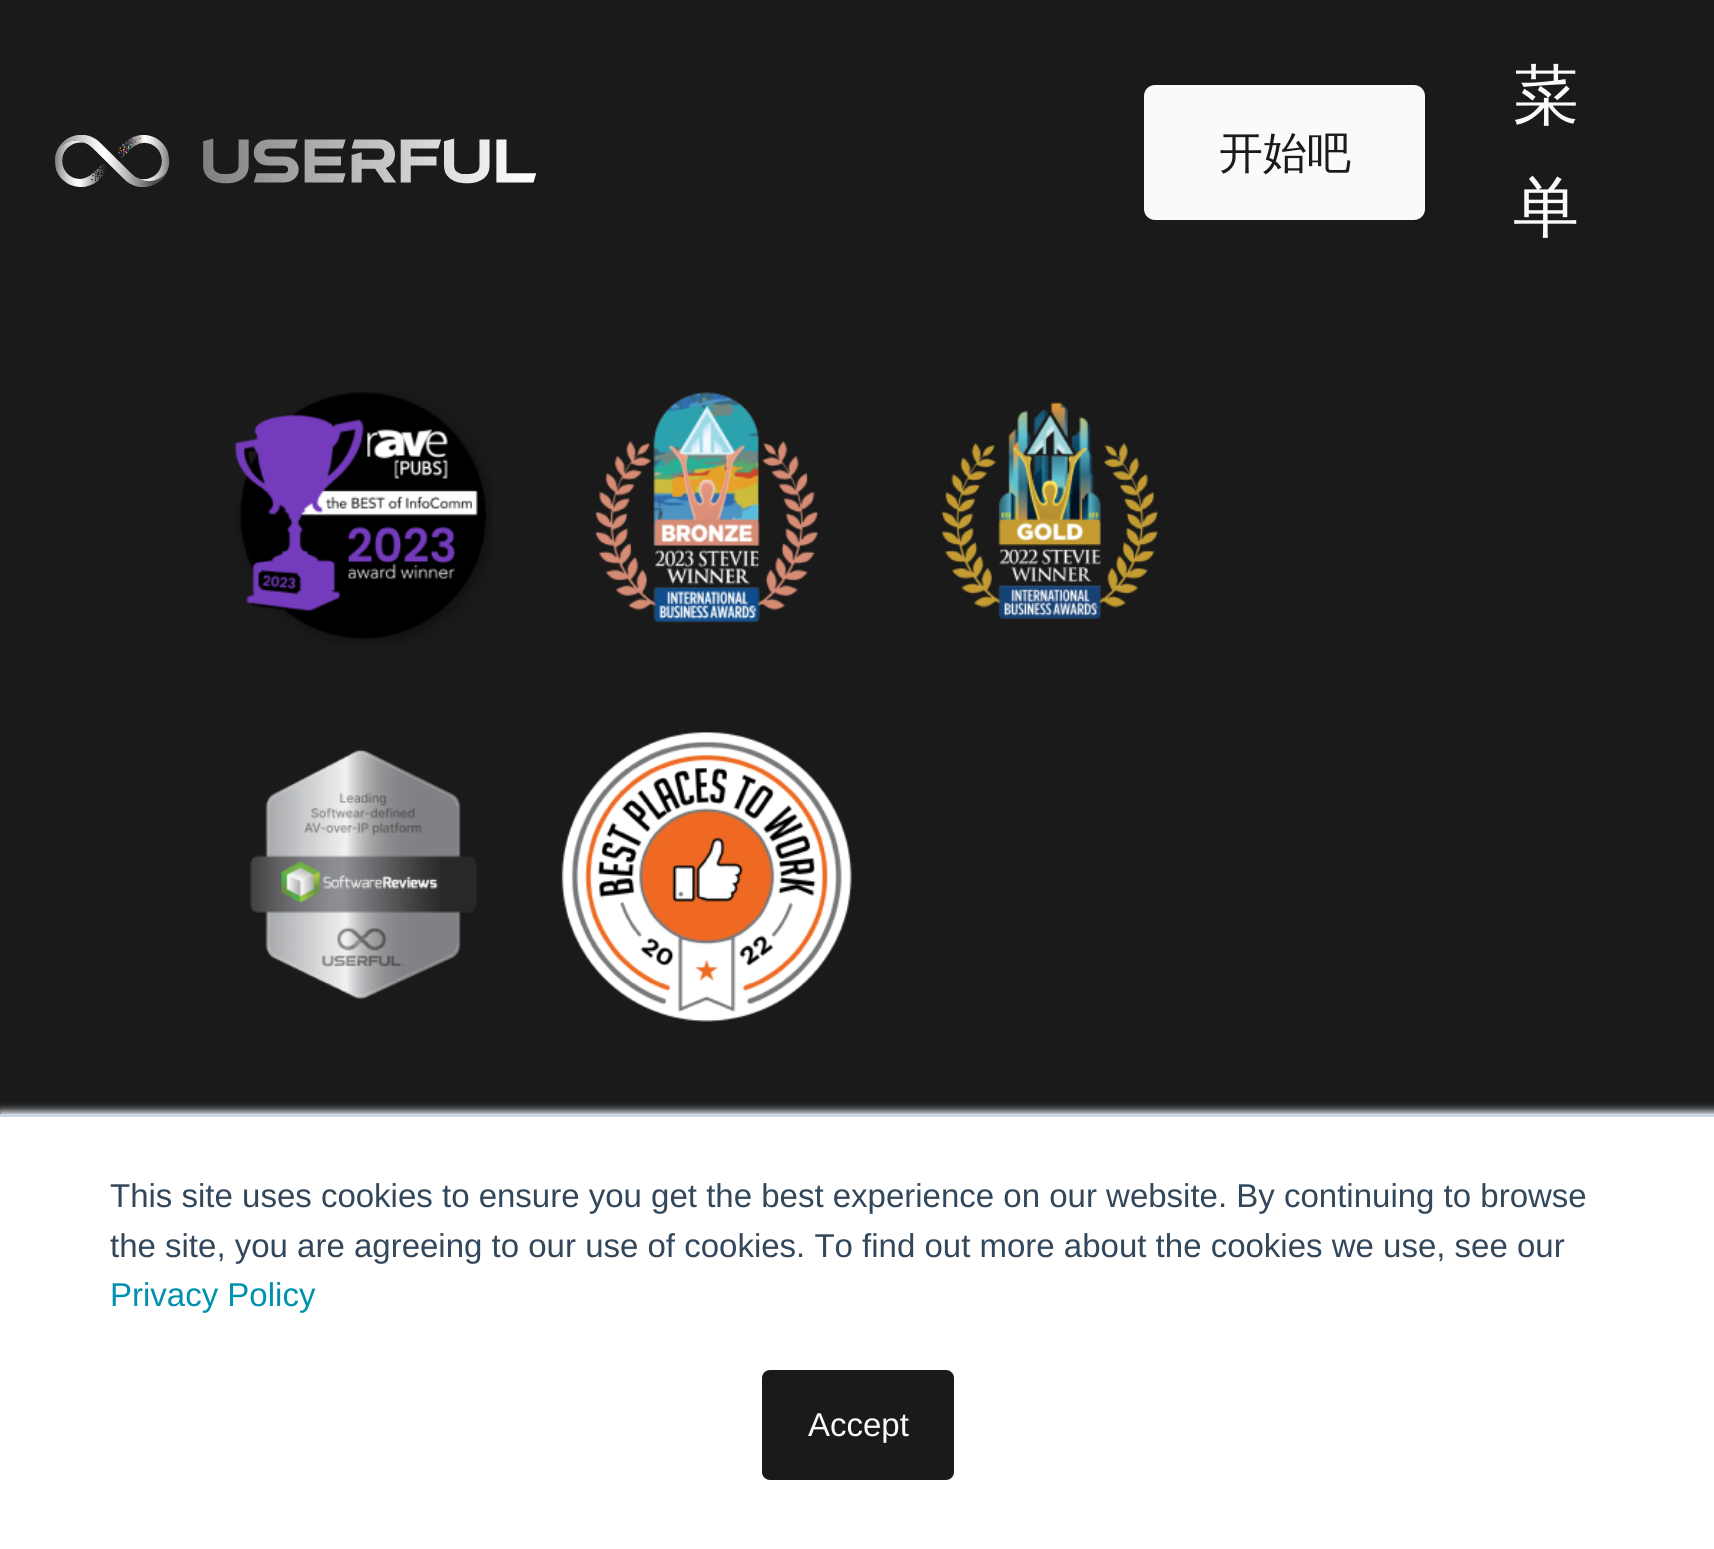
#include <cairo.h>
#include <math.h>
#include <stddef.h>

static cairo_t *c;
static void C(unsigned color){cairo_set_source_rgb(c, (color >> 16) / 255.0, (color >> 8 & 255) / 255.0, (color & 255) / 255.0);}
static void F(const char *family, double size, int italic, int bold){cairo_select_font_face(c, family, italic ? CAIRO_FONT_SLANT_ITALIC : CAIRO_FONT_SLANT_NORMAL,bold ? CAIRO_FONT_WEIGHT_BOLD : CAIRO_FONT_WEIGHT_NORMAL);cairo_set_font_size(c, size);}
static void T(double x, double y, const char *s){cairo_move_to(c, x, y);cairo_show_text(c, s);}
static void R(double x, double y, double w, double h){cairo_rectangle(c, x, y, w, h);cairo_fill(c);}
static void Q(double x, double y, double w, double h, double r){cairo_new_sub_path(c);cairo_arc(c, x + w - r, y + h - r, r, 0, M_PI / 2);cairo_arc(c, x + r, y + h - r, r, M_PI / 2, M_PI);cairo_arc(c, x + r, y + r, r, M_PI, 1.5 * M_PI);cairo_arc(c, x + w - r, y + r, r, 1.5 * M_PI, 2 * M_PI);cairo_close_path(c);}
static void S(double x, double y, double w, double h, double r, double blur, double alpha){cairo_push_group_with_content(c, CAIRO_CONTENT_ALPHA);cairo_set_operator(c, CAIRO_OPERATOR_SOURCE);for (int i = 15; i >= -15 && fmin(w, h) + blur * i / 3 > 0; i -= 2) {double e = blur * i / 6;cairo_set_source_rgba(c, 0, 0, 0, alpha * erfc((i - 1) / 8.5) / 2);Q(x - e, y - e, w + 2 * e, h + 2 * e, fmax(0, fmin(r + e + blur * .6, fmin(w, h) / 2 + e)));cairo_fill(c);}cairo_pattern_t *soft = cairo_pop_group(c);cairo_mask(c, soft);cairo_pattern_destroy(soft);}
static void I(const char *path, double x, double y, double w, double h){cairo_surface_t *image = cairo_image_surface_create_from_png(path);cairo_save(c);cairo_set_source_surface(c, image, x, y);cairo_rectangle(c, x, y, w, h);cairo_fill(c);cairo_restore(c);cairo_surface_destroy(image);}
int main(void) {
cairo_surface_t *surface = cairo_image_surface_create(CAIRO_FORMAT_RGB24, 1714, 1549);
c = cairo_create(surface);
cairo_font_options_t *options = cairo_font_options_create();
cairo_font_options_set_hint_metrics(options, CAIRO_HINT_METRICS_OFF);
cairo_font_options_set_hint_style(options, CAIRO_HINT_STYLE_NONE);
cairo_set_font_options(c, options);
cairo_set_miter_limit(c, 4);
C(0x1a1a1a);
cairo_paint(c);
I("1.png",55,135,481,52);
C(0xfafafa);
Q(1145.5,86.5,278,132,9.5);
cairo_fill_preserve(c);
cairo_set_line_width(c,3);
cairo_stroke(c);
F("WenQuanYi Zen Hei Medium",44,0,0);
C(0x1a1a1a);
T(1219,168,"开始吧");
F("WenQuanYi Zen Hei Medium",66,0,0);
C(0xfafafa);
T(1513,118,"菜");
T(1513,230,"单");
I("2.png",234,392,258,252);
I("3.png",594,392,225,231);
I("4.png",941,402,218,217);
I("5.png",249,749,228,251);
I("6.png",561,732,291,290);
C(0xeaf0f6);
S(0,1111,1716,437,0,4,1);
C(0xffffff);
R(0,1117,1714,432);
C(0xcbd6e2);
R(0,1114,1714,3);
F("Liberation Sans",33,0,0);
C(0x33475b);
T(110,1207,"This site uses cookies to ensure you get the best experience on our website. By continuing to browse");
T(110,1257,"the site, you are agreeing to our use of cookies. To find out more about the cookies we use, see our");
C(0x0091ae);
T(110,1306,"Privacy Policy");
C(0x1a1a1a);
Q(763.5,1371.5,189,107,6.5);
cairo_fill_preserve(c);
cairo_stroke(c);
C(0xfafafa);
T(808,1436,"Accept");
cairo_surface_write_to_png(surface, "o.png");
cairo_font_options_destroy(options);
cairo_destroy(c);
cairo_surface_destroy(surface);
return 0;
}
